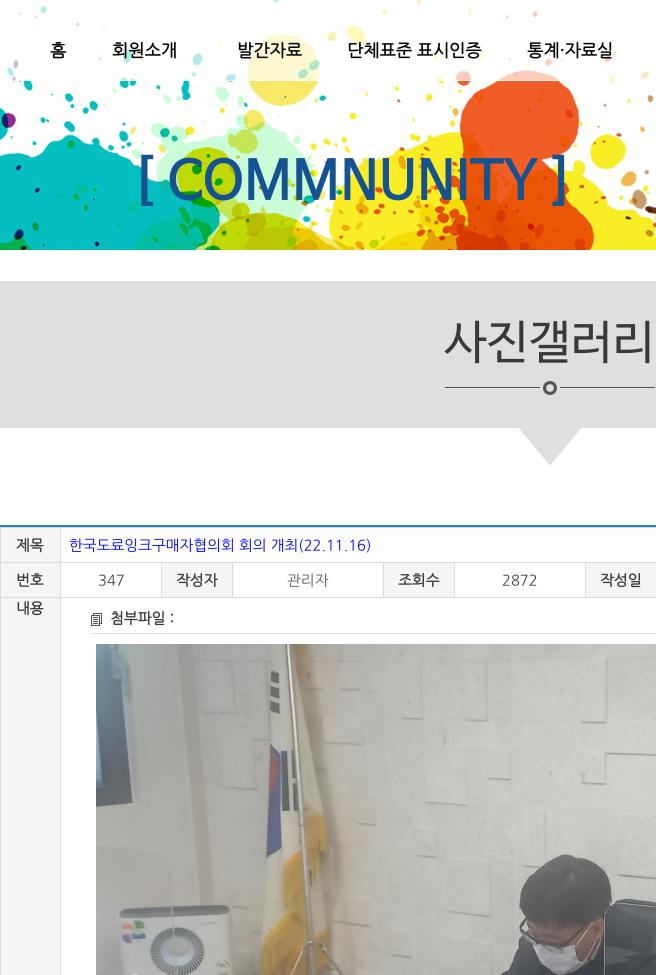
#include <cairo.h>
#include <math.h>
#include <stddef.h>

static cairo_t *c;
static void C(unsigned color){cairo_set_source_rgb(c, (color >> 16) / 255.0, (color >> 8 & 255) / 255.0, (color & 255) / 255.0);}
static void F(const char *family, double size, int italic, int bold){cairo_select_font_face(c, family, italic ? CAIRO_FONT_SLANT_ITALIC : CAIRO_FONT_SLANT_NORMAL,bold ? CAIRO_FONT_WEIGHT_BOLD : CAIRO_FONT_WEIGHT_NORMAL);cairo_set_font_size(c, size);}
static void T(double x, double y, const char *s){cairo_move_to(c, x, y);cairo_show_text(c, s);}
static void L(double x, double y, const char *s, double letter, double word){cairo_move_to(c, x, y);while (*s) {char ch[5] = {0};int n = 0;do ch[n++] = *s++; while ((*s & 0xC0) == 0x80);cairo_show_text(c, ch);cairo_rel_move_to(c, letter + word * (*ch == ' '), 0);}}
static void R(double x, double y, double w, double h){cairo_rectangle(c, x, y, w, h);cairo_fill(c);}
static void I(const char *path, double x, double y, double w, double h){cairo_surface_t *image = cairo_image_surface_create_from_png(path);cairo_save(c);cairo_set_source_surface(c, image, x, y);cairo_rectangle(c, x, y, w, h);cairo_fill(c);cairo_restore(c);cairo_surface_destroy(image);}
int main(void) {
cairo_surface_t *surface = cairo_image_surface_create(CAIRO_FORMAT_RGB24, 656, 975);
c = cairo_create(surface);
cairo_font_options_t *options = cairo_font_options_create();
cairo_font_options_set_hint_metrics(options, CAIRO_HINT_METRICS_OFF);
cairo_font_options_set_hint_style(options, CAIRO_HINT_STYLE_NONE);
cairo_set_font_options(c, options);
cairo_set_miter_limit(c, 4);
C(0xffffff);
cairo_paint(c);
I("1.png",0,0,656,250);
cairo_set_source_rgba(c,1,1,1,0.69);
R(7,0,643,81);
F("NanumGothic",17.25,0,1);
C(0x000000);
T(50,56,"홈");
T(112,56,"회원소개");
T(237,56,"발간자료");
T(347,56,"단체표준 표시인증");
T(527,56,"통계·자료실");
cairo_set_source_rgba(c,1,1,1,0.5);
R(12,80,602,1);
F("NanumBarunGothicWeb",53.25,0,1);
C(0x145292);
L(130,198,"[ COMMNUNITY ]",1,0);
C(0xdfdfdf);
R(0,281,656,147);
F("NanumBarunGothicWeb",46.5,0,0);
C(0x393939);
L(445,357,"사진갤러리",.5,0);
C(0x525252);
R(445,387,95,1);
I("2.png",543,381,14,14);
R(560,387,95,1);
I("3.png",519,428,62,37);
C(0x1a85bb);
R(0,525,656,2);
C(0xdadada);
R(0,527,656,1);
C(0xf5f5f5);
R(1,528,59,34);
F("NanumGothic",14.7,0,1);
C(0x393939);
T(16,550,"제목");
C(0xdadada);
R(585,562,71,1);
R(60,597,596,1);
R(585,562,1,36);
R(454,562,132,1);
R(454,562,1,36);
R(383,562,72,1);
R(383,562,1,36);
R(232,562,152,1);
R(232,562,1,36);
R(161,562,72,1);
R(161,562,1,36);
R(60,562,102,1);
R(60,597,1,378);
R(0,597,61,1);
R(60,562,1,36);
R(0,562,61,1);
R(60,527,1,36);
F("NanumGothic",14.7,0,0);
C(0x0000ff);
T(69,550,"한국도료잉크구매자협의회 회의 개최(22.11.16)");
C(0xf5f5f5);
R(1,563,59,34);
C(0xdadada);
R(0,597,1,378);
R(0,527,1,71);
F("NanumGothic",14.7,0,1);
C(0x393939);
T(16,585,"번호");
F("NanumGothic",14.7,0,0);
T(98,585,"347");
C(0xf5f5f5);
R(162,563,70,34);
F("NanumGothic",14.7,0,1);
C(0x393939);
T(176,585,"작성자");
F("NanumGothic",14.7,0,0);
C(0x5b5b5b);
T(287,585,"관리자");
C(0xf5f5f5);
R(384,563,70,34);
F("NanumGothic",14.7,0,1);
C(0x393939);
T(398,585,"조회수");
F("NanumGothic",14.7,0,0);
T(502,585,"2872");
C(0xf5f5f5);
R(586,563,70,34);
F("NanumGothic",14.7,0,1);
C(0x393939);
T(600,585,"작성일");
C(0xf5f5f5);
R(1,598,59,377);
C(0x393939);
T(16,613,"내용");
I("4.png",91,613,11,13);
T(110,623,"첨부파일 :");
C(0xe0e0e0);
R(91,633,565,1);
I("5.png",96,644,560,331);
cairo_surface_write_to_png(surface, "o.png");
cairo_font_options_destroy(options);
cairo_destroy(c);
cairo_surface_destroy(surface);
return 0;
}
